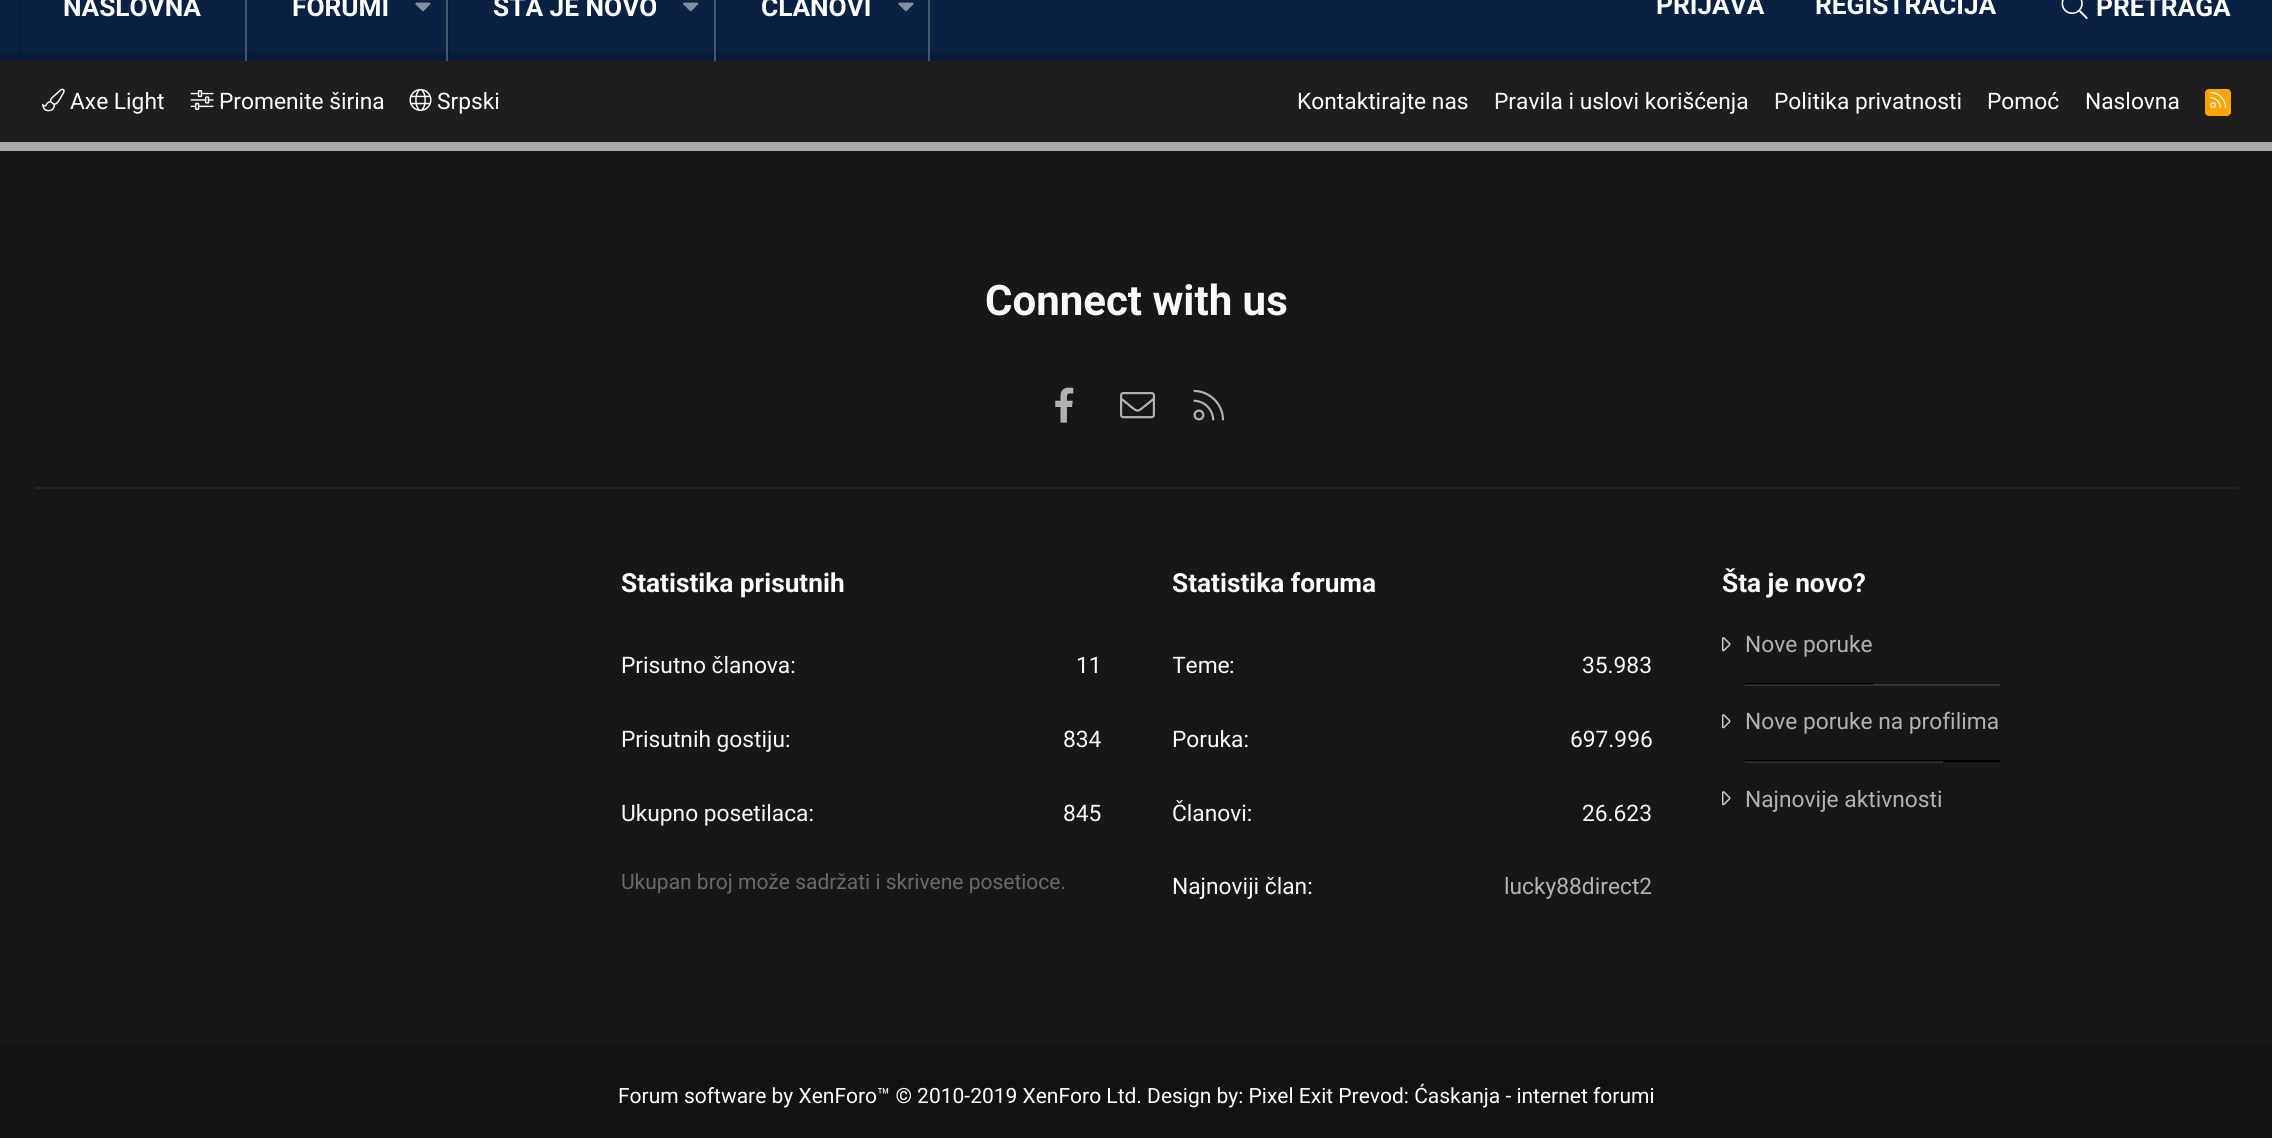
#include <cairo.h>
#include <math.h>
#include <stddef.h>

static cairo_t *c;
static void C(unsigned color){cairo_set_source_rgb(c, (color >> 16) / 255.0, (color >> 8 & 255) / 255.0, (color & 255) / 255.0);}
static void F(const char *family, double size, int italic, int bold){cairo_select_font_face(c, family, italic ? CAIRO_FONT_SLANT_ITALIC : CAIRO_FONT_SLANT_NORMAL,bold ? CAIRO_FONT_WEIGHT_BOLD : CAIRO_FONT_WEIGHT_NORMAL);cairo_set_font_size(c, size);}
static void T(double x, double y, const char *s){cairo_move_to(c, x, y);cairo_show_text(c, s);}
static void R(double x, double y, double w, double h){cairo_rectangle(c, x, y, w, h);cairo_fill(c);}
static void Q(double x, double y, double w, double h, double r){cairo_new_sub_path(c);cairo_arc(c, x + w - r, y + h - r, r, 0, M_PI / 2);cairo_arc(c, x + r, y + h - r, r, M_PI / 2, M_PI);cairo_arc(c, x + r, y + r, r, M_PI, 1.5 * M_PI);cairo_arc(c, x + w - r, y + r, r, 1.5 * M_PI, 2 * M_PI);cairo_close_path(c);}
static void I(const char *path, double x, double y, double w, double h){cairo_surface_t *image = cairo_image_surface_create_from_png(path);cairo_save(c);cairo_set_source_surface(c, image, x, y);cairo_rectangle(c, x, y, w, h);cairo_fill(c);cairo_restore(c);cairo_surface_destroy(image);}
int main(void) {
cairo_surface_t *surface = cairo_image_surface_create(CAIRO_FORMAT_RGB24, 2272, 1138);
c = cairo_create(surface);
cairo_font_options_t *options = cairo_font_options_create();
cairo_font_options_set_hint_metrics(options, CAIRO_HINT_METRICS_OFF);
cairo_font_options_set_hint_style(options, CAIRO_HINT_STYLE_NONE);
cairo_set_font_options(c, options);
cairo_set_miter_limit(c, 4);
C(0x1e1e1e);
cairo_paint(c);
C(0x092143);
R(0,0,2272,53);
C(0x081d3b);
R(18,0,2,61);
C(0x081c39);
R(0,53,2272,8);
C(0x071932);
R(18,53,2,8);
cairo_set_source_rgba(c,1,1,1,0.25);
R(245,0,2,61);
F("Roboto",26.25,0,1);
C(0xffffff);
T(63,16,"NASLOVNA");
cairo_set_source_rgba(c,1,1,1,0.25);
R(446,0,2,61);
cairo_set_source_rgba(c,0,0,0,0.12);
R(247,0,2,61);
C(0xffffff);
T(292,16,"FORUMI");
I("1.png",415,2,16,10);
cairo_set_source_rgba(c,1,1,1,0.25);
R(714,0,2,61);
cairo_set_source_rgba(c,0,0,0,0.12);
R(448,0,2,61);
C(0xffffff);
T(493,16,"ŠTA JE NOVO");
I("2.png",683,2,16,10);
cairo_set_source_rgba(c,1,1,1,0.25);
R(928,0,2,61);
cairo_set_source_rgba(c,0,0,0,0.12);
R(716,0,2,61);
C(0xffffff);
T(761,16,"ČLANOVI");
I("1.png",898,2,16,10);
T(1656,14,"PRIJAVA");
T(1815,14,"REGISTRACIJA");
I("3.png",2061,0,27,19);
T(2096,16,"PRETRAGA");
I("4.png",42,88,23,24);
F("Roboto",22.75,0,0);
T(70,109,"Axe Light");
I("5.png",190,90,24,20);
T(219,109,"Promenite širina");
I("6.png",409,88,23,23);
T(437,109,"Srpski");
T(1297,109,"Kontaktirajte nas");
T(1494,109,"Pravila i uslovi korišćenja");
T(1774,109,"Politika privatnosti");
T(1987,109,"Pomoć");
T(2085,109,"Naslovna");
C(0xffa500);
Q(2205,89,26,27,4);
cairo_fill(c);
I("7.png",2210,92,17,16);
C(0x171717);
R(0,151,2272,896);
C(0x353535);
R(1745,762,198,1);
R(1745,684,255,2);
C(0xa9a9a9);
R(0,142,2272,9);
C(0x242424);
R(35,487,2203,2);
F("Roboto",42,0,1);
C(0xf9f9f9);
T(985,315,"Connect with us");
I("8.png",1055,387,19,36);
I("9.png",1120,392,35,27);
I("10.png",1193,389,32,32);
F("Roboto",26.25,0,1);
C(0xffffff);
T(621,592,"Statistika prisutnih");
F("Roboto",22.75,0,0);
C(0xf9f9f9);
T(621,673,"Prisutno članova:");
T(1076,673,"11");
T(621,747,"Prisutnih gostiju:");
T(1063,747,"834");
T(621,821,"Ukupno posetilaca:");
T(1063,821,"845");
F("Roboto",21,0,0);
C(0x6a6a6a);
T(621,889,"Ukupan broj može sadržati i skrivene posetioce.");
F("Roboto",26.25,0,1);
C(0xffffff);
T(1172,592,"Statistika foruma");
cairo_save(c);
cairo_rectangle(c,1173,630,479,74);
cairo_clip(c);
F("Roboto",22.75,0,0);
C(0xf9f9f9);
T(1172,673,"Teme");
cairo_restore(c);
F("Roboto",22.75,0,0);
C(0xf9f9f9);
T(1229,673,":");
T(1582,673,"35.983");
T(1172,747,"Poruka:");
T(1570,747,"697.996");
T(1172,821,"Članovi:");
T(1582,821,"26.623");
T(1172,894,"Najnoviji član:");
C(0xb2b2b2);
T(1504,894,"lucky88direct2");
F("Roboto",26.25,0,1);
C(0xffffff);
T(1722,592,"Šta je novo?");
I("11.png",1722,637,9,15);
C(0x000000);
R(1745,683,128,1);
C(0x212121);
R(1745,684,128,1);
F("Roboto",22.75,0,0);
C(0xb2b2b2);
T(1745,652,"Nove poruke");
I("11.png",1722,714,9,15);
C(0x000000);
R(1745,760,255,2);
C(0x212121);
R(1745,761,198,1);
C(0xb2b2b2);
T(1745,729,"Nove poruke na profilima");
I("11.png",1722,791,9,15);
T(1745,807,"Najnovije aktivnosti");
C(0x121212);
R(0,1047,2272,91);
F("Roboto",21,0,0);
C(0xffffff);
T(618,1103,"Forum software by XenForo™ © 2010-2019 XenForo Ltd. Design by: Pixel Exit Prevod: Ćaskanja - internet forumi");
cairo_surface_write_to_png(surface, "o.png");
cairo_font_options_destroy(options);
cairo_destroy(c);
cairo_surface_destroy(surface);
return 0;
}
